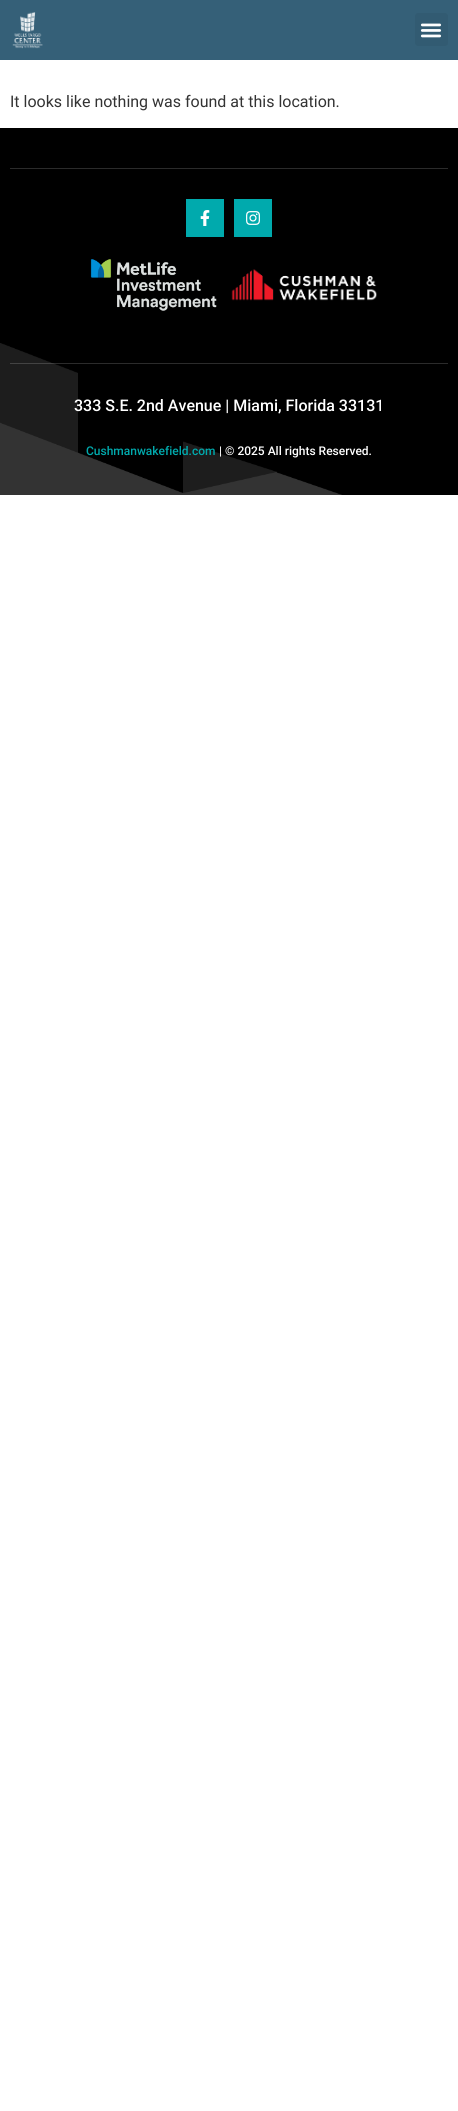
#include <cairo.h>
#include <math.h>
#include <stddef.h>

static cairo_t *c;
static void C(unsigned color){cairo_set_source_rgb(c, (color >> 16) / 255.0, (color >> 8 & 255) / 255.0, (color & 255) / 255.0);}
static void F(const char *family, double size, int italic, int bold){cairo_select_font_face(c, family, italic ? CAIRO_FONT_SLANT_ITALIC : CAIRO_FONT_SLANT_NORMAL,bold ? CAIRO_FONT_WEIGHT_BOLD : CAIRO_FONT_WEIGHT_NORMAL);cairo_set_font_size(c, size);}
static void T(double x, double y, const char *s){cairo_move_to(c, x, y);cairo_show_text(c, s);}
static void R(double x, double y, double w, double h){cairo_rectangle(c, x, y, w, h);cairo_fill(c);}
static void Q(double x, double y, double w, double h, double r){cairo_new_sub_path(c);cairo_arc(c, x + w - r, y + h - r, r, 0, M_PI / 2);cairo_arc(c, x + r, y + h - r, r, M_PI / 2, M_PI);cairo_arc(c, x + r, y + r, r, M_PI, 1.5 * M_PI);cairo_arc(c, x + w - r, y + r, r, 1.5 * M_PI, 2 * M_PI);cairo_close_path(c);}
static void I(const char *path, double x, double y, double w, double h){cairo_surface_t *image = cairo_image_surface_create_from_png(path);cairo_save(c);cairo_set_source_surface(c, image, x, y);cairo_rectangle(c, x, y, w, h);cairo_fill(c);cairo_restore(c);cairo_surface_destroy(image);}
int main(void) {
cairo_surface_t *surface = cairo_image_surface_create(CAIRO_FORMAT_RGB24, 458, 2111);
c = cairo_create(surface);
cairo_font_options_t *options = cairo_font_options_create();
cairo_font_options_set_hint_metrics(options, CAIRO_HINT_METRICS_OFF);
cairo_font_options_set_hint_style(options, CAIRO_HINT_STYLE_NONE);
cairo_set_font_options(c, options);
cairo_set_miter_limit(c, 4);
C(0xffffff);
cairo_paint(c);
C(0x356078);
R(0,0,458,60);
I("1.png",12,12,31,37);
C(0x325b72);
Q(415,13,33,33,3);
cairo_fill(c);
I("2.png",420,23,22,15);
F("Roboto",16,0,0);
C(0x333333);
T(10,107,"It looks like nothing was found at this location.");
C(0x000000);
R(0,128,458,367);
I("3.png",0,343,342,152);
C(0x2b2b2b);
R(10,168,438,1);
C(0x00aaad);
R(186,199,38,38);
I("4.png",200,210,10,16);
R(234,199,38,38);
I("5.png",246,211,14,14);
I("6.png",90,259,127,52);
I("7.png",231,269,146,32);
cairo_set_source_rgba(c,1,1,1,0.17);
R(10,363,438,1);
F("Roboto Medium",16,0,0);
C(0xffffff);
T(74,411,"333 S.E. 2nd Avenue | Miami, Florida 33131");
F("Roboto Medium",12,0,0);
C(0x00aaad);
T(86,455,"Cushmanwakefield.com");
C(0xffffff);
T(219,455,"| © 2025 All rights Reserved.");
cairo_surface_write_to_png(surface, "o.png");
cairo_font_options_destroy(options);
cairo_destroy(c);
cairo_surface_destroy(surface);
return 0;
}
